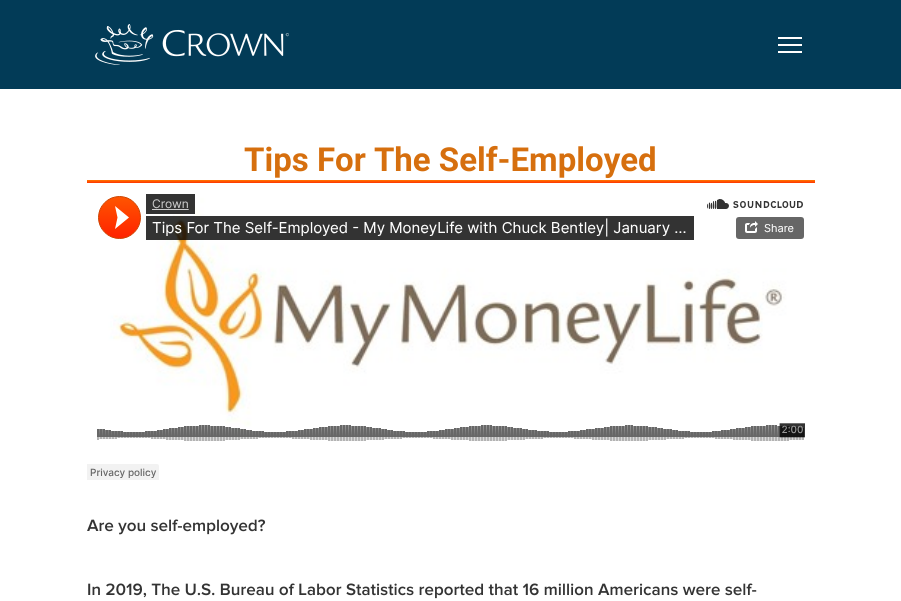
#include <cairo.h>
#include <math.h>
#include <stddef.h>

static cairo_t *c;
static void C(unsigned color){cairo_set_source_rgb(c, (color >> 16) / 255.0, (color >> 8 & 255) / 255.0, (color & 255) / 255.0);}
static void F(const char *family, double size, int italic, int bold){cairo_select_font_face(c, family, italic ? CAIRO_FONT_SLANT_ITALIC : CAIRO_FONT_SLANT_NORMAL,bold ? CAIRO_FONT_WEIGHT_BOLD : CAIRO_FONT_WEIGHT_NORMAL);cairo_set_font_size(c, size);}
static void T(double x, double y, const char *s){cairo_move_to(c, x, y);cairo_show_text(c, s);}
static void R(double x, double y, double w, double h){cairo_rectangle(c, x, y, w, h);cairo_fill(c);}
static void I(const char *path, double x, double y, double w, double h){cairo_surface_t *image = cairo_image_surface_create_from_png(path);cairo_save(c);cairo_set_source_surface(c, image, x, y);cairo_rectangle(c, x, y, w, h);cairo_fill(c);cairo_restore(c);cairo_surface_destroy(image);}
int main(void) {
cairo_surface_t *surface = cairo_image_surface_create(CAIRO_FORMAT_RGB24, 901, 601);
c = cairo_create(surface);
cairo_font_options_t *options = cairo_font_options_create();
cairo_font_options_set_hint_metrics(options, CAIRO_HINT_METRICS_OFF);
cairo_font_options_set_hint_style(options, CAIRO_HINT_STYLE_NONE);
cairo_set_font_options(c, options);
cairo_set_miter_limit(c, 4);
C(0xffffff);
cairo_paint(c);
C(0x023b57);
R(0,0,901,89);
I("1.png",95,24,194,41);
C(0xffffff);
R(778,37,24,2);
R(778,44,24,2);
R(778,51,24,2);
F("Roboto",33,0,1);
C(0xd66f0e);
T(244,171,"Tips For The Self-Employed");
I("2.png",87,180,728,300);
I("3.png",87,519,179,16);
I("4.png",88,583,669,16);
cairo_surface_write_to_png(surface, "o.png");
cairo_font_options_destroy(options);
cairo_destroy(c);
cairo_surface_destroy(surface);
return 0;
}
